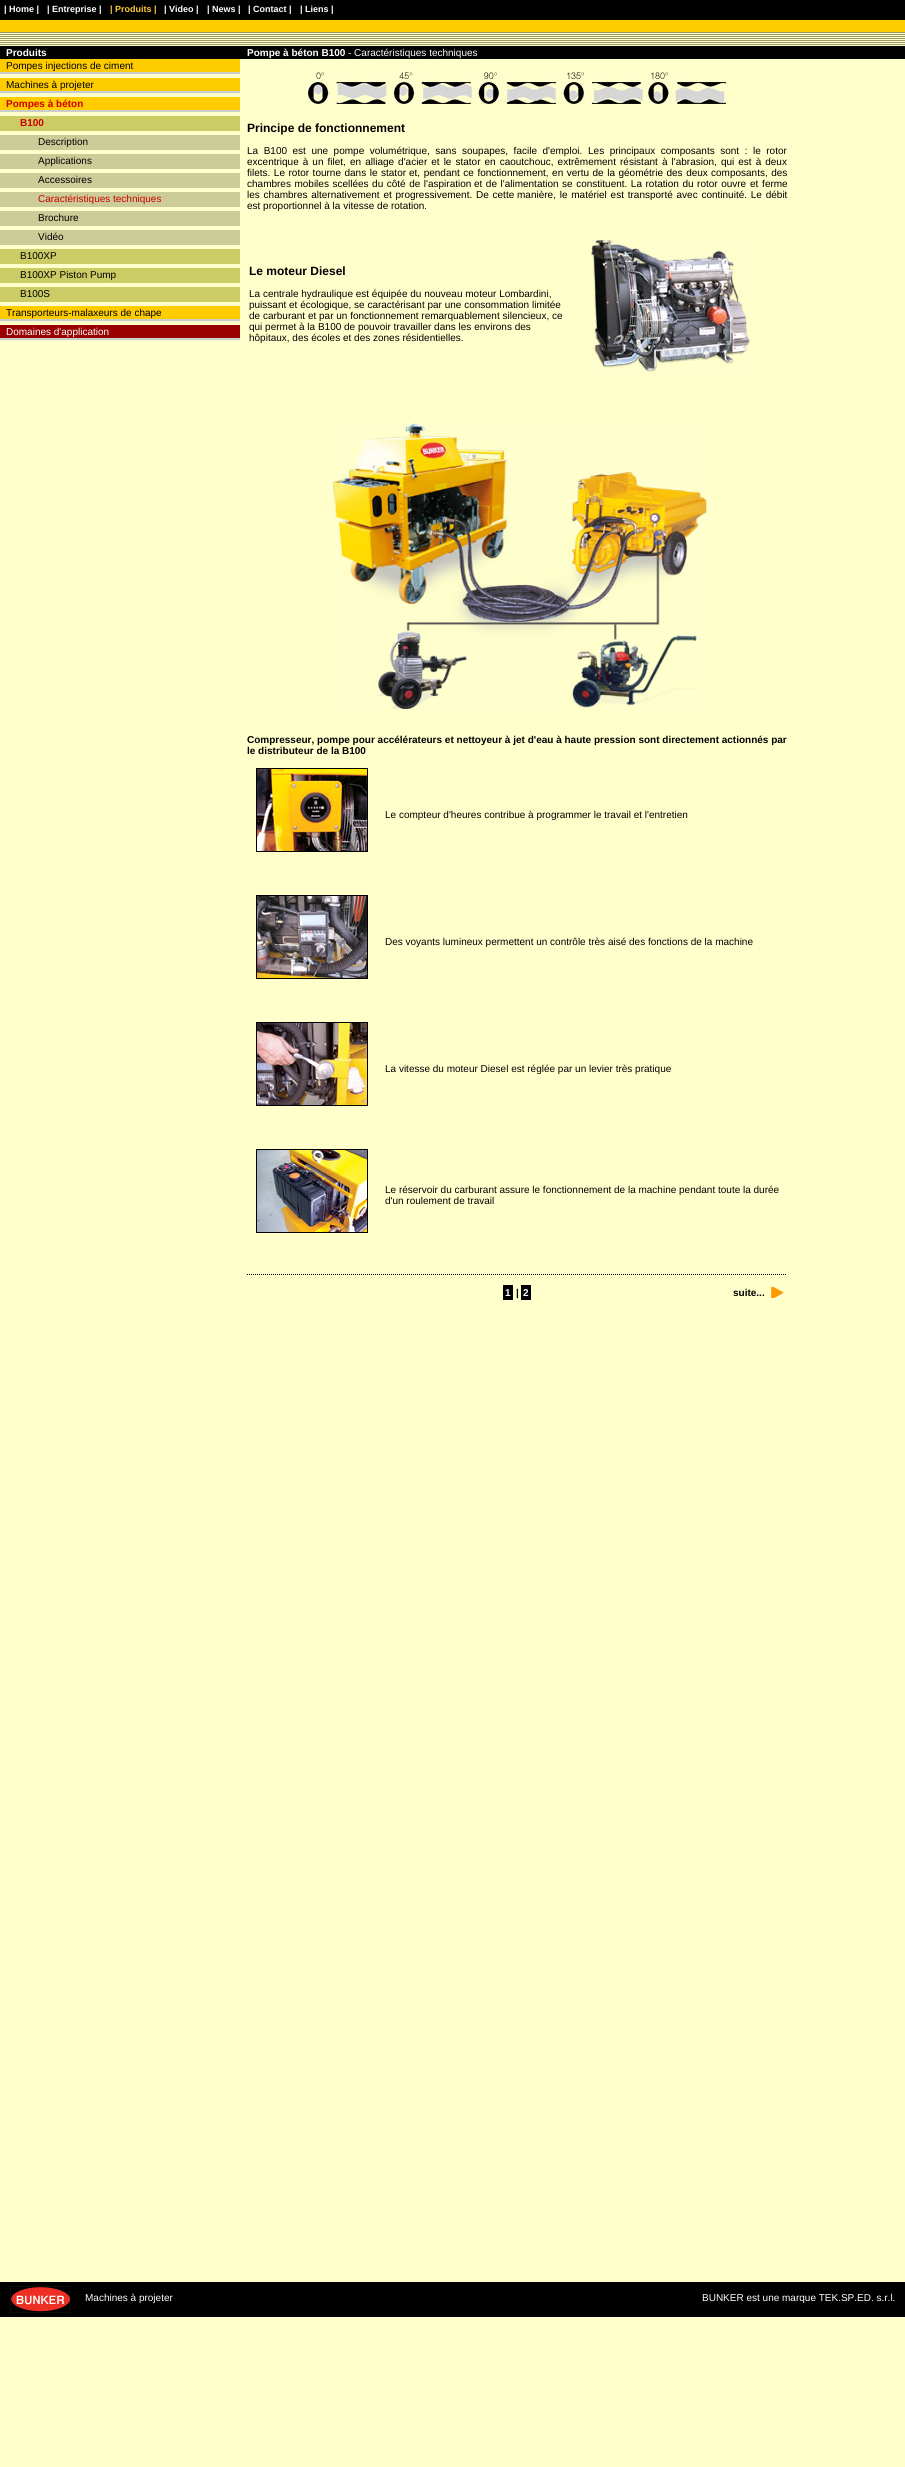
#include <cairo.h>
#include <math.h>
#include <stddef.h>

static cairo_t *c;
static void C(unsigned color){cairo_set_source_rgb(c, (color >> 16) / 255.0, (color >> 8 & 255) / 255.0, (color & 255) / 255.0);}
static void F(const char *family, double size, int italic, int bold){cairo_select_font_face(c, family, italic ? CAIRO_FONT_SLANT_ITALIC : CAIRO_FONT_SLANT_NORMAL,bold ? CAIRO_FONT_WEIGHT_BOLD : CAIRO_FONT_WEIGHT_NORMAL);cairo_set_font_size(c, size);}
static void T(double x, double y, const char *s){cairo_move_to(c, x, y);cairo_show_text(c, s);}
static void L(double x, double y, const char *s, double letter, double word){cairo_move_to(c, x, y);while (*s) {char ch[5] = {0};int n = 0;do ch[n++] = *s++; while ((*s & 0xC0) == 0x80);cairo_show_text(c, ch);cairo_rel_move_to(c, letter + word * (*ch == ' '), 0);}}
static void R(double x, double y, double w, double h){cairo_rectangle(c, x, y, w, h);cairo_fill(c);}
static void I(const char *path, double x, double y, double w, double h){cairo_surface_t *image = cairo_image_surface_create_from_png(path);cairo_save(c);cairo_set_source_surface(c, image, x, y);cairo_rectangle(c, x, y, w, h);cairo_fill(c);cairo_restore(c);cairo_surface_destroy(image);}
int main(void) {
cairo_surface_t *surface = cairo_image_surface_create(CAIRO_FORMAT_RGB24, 905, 2467);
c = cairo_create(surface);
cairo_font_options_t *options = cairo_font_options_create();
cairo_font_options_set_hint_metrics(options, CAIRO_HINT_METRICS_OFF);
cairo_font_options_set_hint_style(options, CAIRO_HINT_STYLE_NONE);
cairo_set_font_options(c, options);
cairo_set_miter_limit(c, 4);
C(0xffffcc);
cairo_paint(c);
C(0x000000);
R(0,0,905,20);
I("1.png",0,20,905,25);
F("Liberation Sans",9,0,1);
C(0xffffff);
T(4,12,"| Home |");
T(47,12,"| Entreprise |");
C(0xffcc33);
T(110,12,"| Produits |");
C(0xffffff);
T(164,12,"| Video |");
T(207,12,"| News |");
T(248,12,"| Contact |");
T(300,12,"| Liens |");
C(0x000000);
R(0,46,905,13);
F("Liberation Sans",10,0,1);
C(0xffffff);
T(6,56,"Produits");
C(0xffcc00);
R(0,59,240,13);
C(0xcccccc);
R(0,72,240,2);
F("Liberation Sans",10,0,0);
C(0x000000);
T(6,69,"Pompes injections de ciment");
C(0xffcc00);
R(0,78,240,13);
C(0xcccccc);
R(0,91,240,2);
C(0x000000);
T(6,88,"Machines à projeter");
C(0xffcc00);
R(0,97,240,13);
C(0xcccccc);
R(0,110,240,2);
F("Liberation Sans",10,0,1);
C(0xcc0000);
T(6,107,"Pompes à béton");
C(0xcccc66);
R(0,116,240,15);
C(0xcc0000);
T(20,126,"B100");
C(0xcccc99);
R(0,135,240,15);
F("Liberation Sans",10,0,0);
C(0x000000);
T(38,145,"Description");
C(0xcccc99);
R(0,154,240,15);
C(0x000000);
T(38,164,"Applications");
C(0xcccc99);
R(0,173,240,15);
C(0x000000);
T(38,183,"Accessoires");
C(0xcccc99);
R(0,192,240,15);
C(0xcc0000);
T(38,202,"Caractéristiques techniques");
C(0xcccc99);
R(0,211,240,15);
C(0x000000);
T(38,221,"Brochure");
C(0xcccc99);
R(0,230,240,15);
C(0x000000);
T(38,240,"Vidéo");
C(0xcccc66);
R(0,249,240,15);
C(0x000000);
T(20,259,"B100XP");
C(0xcccc66);
R(0,268,240,15);
C(0x000000);
T(20,278,"B100XP Piston Pump");
C(0xcccc66);
R(0,287,240,15);
C(0x000000);
T(20,297,"B100S");
C(0xffcc00);
R(0,306,240,13);
C(0xcccccc);
R(0,319,240,2);
C(0x000000);
T(6,316,"Transporteurs-malaxeurs de chape");
C(0x990000);
R(0,325,240,13);
C(0xcccccc);
R(0,338,240,2);
C(0xffffff);
T(6,335,"Domaines d'application");
F("Liberation Sans",10,0,1);
T(247,56,"Pompe à béton B100");
F("Liberation Sans",10,0,0);
T(348,56,"- Caractéristiques techniques");
I("2.png",308,67,424,40);
F("Liberation Sans",12,0,1);
C(0x000000);
T(247,132,"Principe de fonctionnement");
F("Liberation Sans",10,0,0);
L(247,154,"La B100 est une pompe volumétrique, sans soupapes, facile d'emploi.",0,2.75);
L(588,154,"Les principaux composants sont : le rotor",0,2.75);
L(247,165,"excentrique à un filet,",0,1.25);
L(350,165,"en alliage d'acier et le stator en caoutchouc, extrêmement résistant",0,1.25);
L(662,165,"à l'abrasion, qui est à deux",0,1.25);
L(247,176,"filets. Le rotor tourne dans le stator",0,.75);
L(409,176,"et, pendant ce fonctionnement, en vertu de la géométrie des deux",0,.75);
L(711,176,"composants, des",0,.75);
L(247,187,"chambres mobiles scellées du côté de l'aspiration",0,.75);
L(474,187,"et de l'alimentation se constituent. La rotation du rotor ouvre",0,.75);
L(750,187,"et ferme",0,1);
L(247,198,"les chambres alternativement et progressivement. De cette",0,1);
L(517,198,"manière, le matériel est transporté avec continuité. Le débit",0,1);
T(247,209,"est proportionnel à la vitesse de rotation.");
F("Liberation Sans",12,0,1);
T(249,275,"Le moteur Diesel");
F("Liberation Sans",10,0,0);
T(249,297,"La centrale hydraulique est équipée du nouveau moteur Lombardini,");
T(249,308,"puissant et écologique, se caractérisant par une consommation limitée");
T(249,319,"de carburant et par un fonctionnement remarquablement silencieux, ce");
T(249,330,"qui permet à la B100 de pouvoir travailler dans les environs des");
T(249,341,"hôpitaux, des écoles et des zones résidentielles.");
I("3.png",590,239,161,136);
I("4.png",333,423,374,287);
F("Liberation Sans",10,0,1);
T(247,743,"Compresseur, pompe pour accélérateurs et nettoyeur à jet d'eau à haute pression sont directement actionnés par");
T(247,754,"le distributeur de la B100");
cairo_rectangle(c,256.5,768.5,111,83);
cairo_set_line_width(c,1);
cairo_stroke(c);
I("5.png",257,769,110,82);
F("Liberation Sans",10,0,0);
T(385,818,"Le compteur d'heures contribue à programmer le travail et l'entretien");
cairo_rectangle(c,256.5,895.5,111,83);
cairo_stroke(c);
I("6.png",257,896,110,82);
T(385,945,"Des voyants lumineux permettent un contrôle très aisé des fonctions de la machine");
cairo_rectangle(c,256.5,1022.5,111,83);
cairo_stroke(c);
I("7.png",257,1023,110,82);
T(385,1072,"La vitesse du moteur Diesel est réglée par un levier très pratique");
cairo_rectangle(c,256.5,1149.5,111,83);
cairo_stroke(c);
I("8.png",257,1150,110,82);
T(385,1193,"Le réservoir du carburant assure le fonctionnement de la machine pendant toute la durée");
T(385,1204,"d'un roulement de travail");
cairo_new_path(c);
cairo_move_to(c,247,1274.5);
cairo_line_to(c,787,1274.5);
cairo_set_dash(c,(double[]){1,1},2,0);
cairo_stroke(c);
R(503,1285,10,15);
F("Liberation Sans",10,0,1);
C(0xffffff);
T(505,1296,"1");
C(0x000000);
T(516,1296,"|");
R(521,1285,10,15);
C(0xffffff);
T(523,1296,"2");
I("9.png",771,1287,13,11);
C(0x000000);
T(733,1296,"suite...");
R(0,2282,905,35);
I("10.png",10,2286,60,27);
F("Liberation Sans",10,0,0);
C(0xffffff);
T(85,2301,"Machines à projeter");
T(702,2301,"BUNKER est une marque TEK.SP.ED. s.r.l.");
cairo_surface_write_to_png(surface, "o.png");
cairo_font_options_destroy(options);
cairo_destroy(c);
cairo_surface_destroy(surface);
return 0;
}
